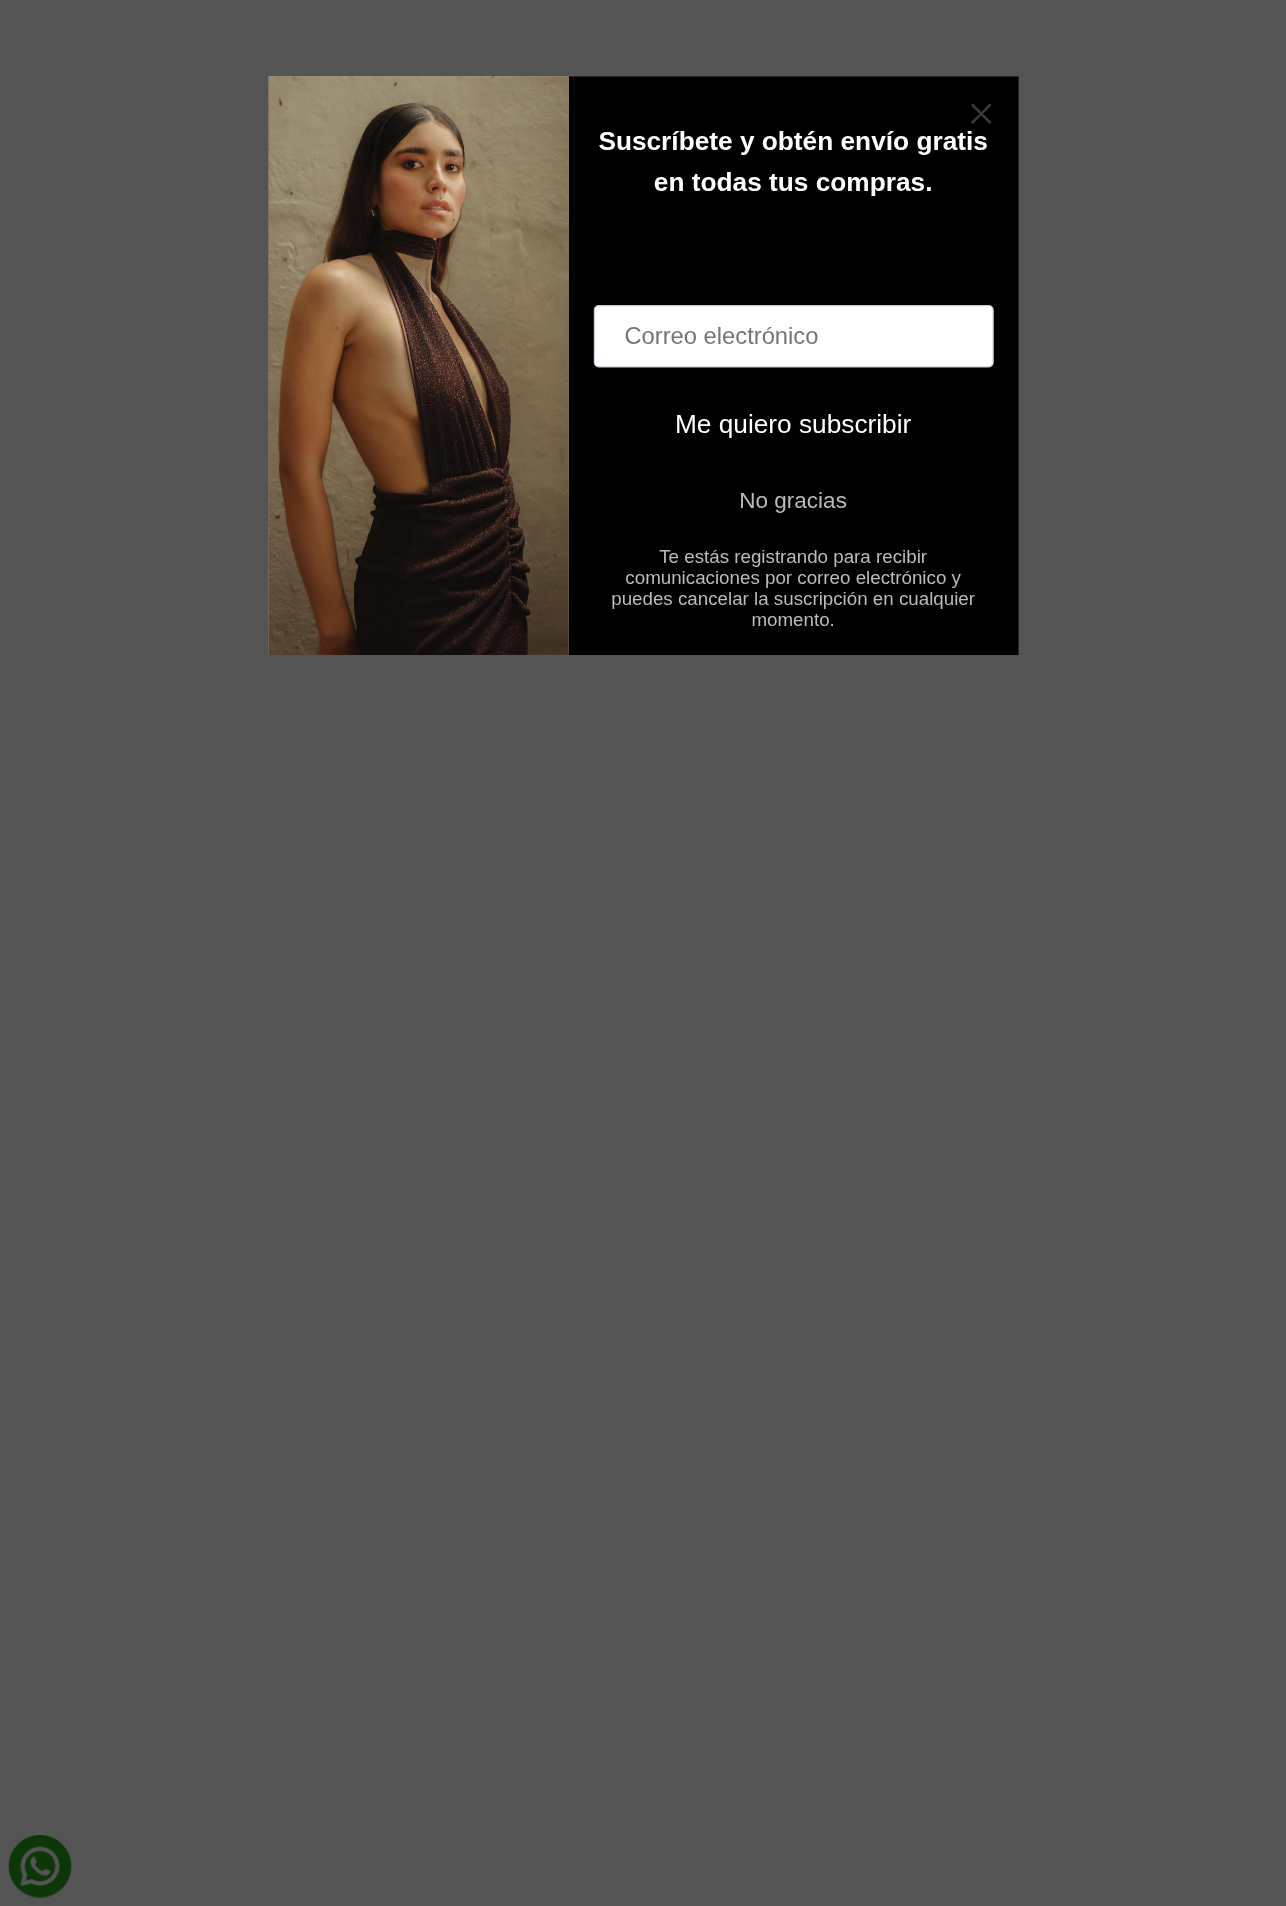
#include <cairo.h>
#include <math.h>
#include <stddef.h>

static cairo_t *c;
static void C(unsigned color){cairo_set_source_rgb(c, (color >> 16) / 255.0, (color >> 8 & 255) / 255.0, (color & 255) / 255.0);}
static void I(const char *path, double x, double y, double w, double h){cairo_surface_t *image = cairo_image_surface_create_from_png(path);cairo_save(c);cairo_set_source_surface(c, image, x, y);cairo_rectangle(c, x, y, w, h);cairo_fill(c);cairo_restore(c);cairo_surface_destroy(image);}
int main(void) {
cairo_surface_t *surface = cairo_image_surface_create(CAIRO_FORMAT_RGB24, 1286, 1906);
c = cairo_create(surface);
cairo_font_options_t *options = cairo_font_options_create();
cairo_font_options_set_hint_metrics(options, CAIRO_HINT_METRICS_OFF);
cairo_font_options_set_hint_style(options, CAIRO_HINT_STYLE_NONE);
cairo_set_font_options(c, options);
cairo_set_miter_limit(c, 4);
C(0xffffff);
cairo_paint(c);
I("2.png",8,1835,64,63);
I("1.png",0,0,1286,1906);
cairo_surface_write_to_png(surface, "o.png");
cairo_font_options_destroy(options);
cairo_destroy(c);
cairo_surface_destroy(surface);
return 0;
}
